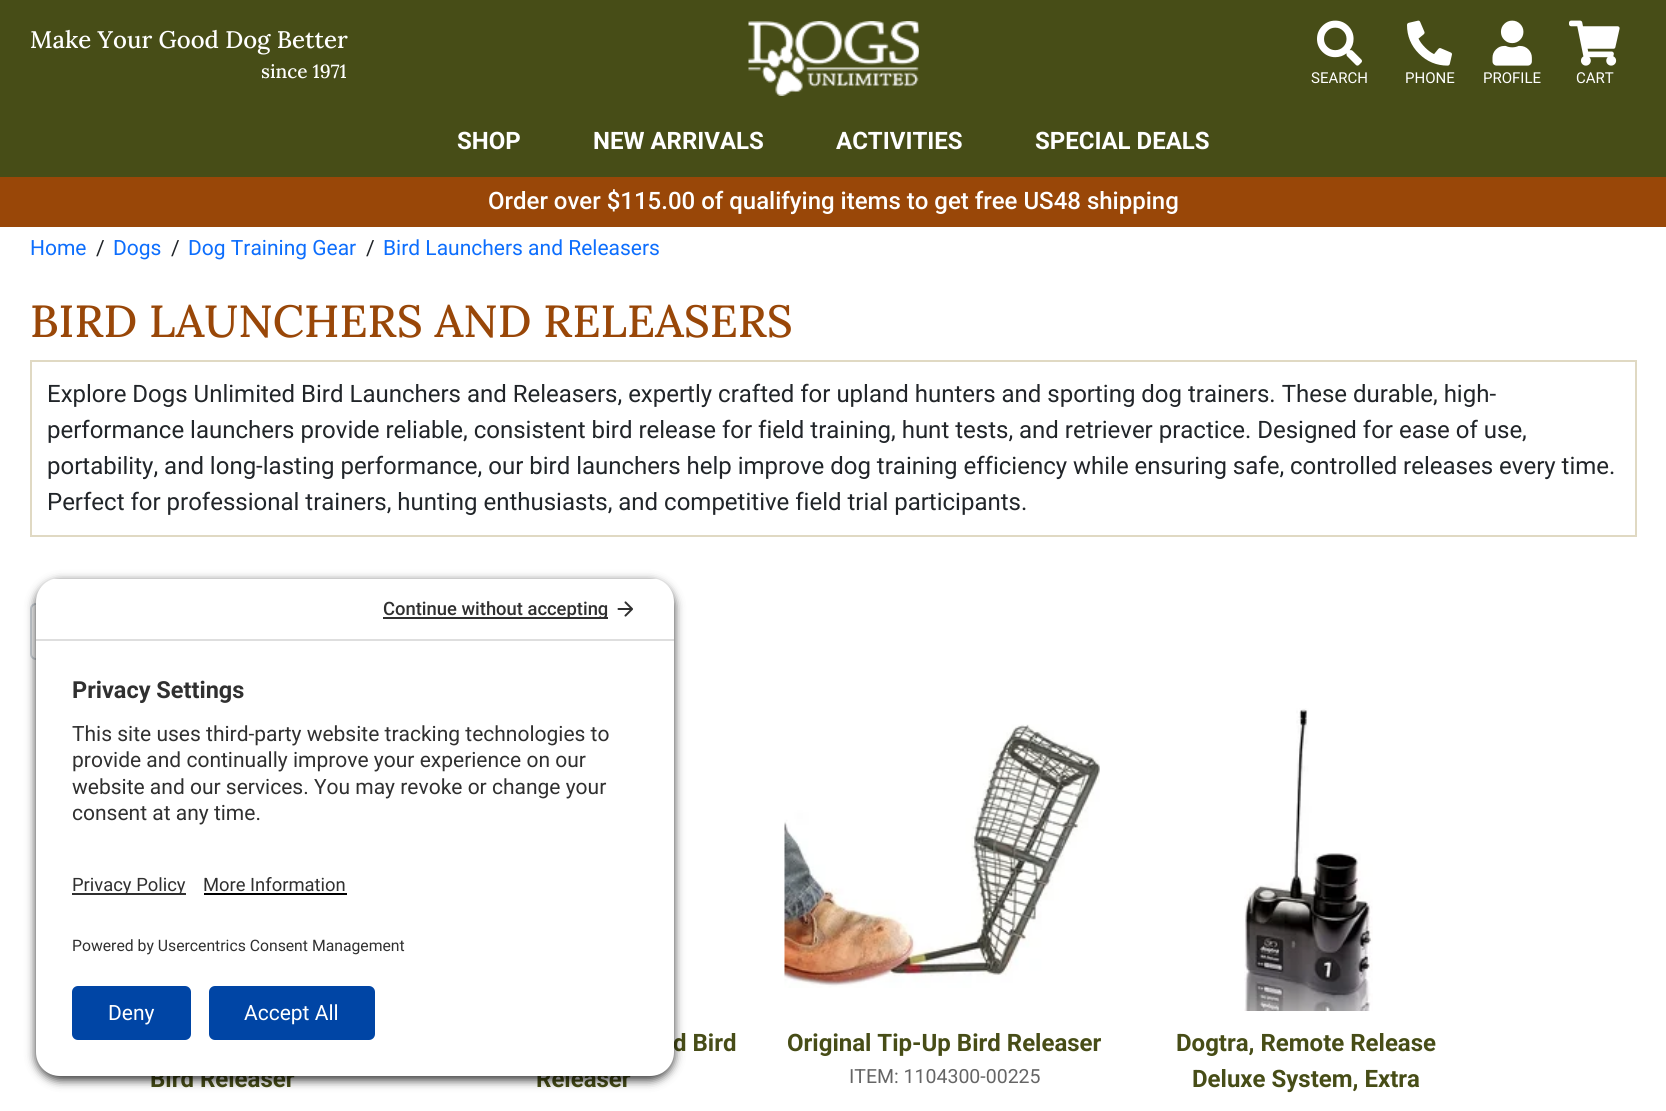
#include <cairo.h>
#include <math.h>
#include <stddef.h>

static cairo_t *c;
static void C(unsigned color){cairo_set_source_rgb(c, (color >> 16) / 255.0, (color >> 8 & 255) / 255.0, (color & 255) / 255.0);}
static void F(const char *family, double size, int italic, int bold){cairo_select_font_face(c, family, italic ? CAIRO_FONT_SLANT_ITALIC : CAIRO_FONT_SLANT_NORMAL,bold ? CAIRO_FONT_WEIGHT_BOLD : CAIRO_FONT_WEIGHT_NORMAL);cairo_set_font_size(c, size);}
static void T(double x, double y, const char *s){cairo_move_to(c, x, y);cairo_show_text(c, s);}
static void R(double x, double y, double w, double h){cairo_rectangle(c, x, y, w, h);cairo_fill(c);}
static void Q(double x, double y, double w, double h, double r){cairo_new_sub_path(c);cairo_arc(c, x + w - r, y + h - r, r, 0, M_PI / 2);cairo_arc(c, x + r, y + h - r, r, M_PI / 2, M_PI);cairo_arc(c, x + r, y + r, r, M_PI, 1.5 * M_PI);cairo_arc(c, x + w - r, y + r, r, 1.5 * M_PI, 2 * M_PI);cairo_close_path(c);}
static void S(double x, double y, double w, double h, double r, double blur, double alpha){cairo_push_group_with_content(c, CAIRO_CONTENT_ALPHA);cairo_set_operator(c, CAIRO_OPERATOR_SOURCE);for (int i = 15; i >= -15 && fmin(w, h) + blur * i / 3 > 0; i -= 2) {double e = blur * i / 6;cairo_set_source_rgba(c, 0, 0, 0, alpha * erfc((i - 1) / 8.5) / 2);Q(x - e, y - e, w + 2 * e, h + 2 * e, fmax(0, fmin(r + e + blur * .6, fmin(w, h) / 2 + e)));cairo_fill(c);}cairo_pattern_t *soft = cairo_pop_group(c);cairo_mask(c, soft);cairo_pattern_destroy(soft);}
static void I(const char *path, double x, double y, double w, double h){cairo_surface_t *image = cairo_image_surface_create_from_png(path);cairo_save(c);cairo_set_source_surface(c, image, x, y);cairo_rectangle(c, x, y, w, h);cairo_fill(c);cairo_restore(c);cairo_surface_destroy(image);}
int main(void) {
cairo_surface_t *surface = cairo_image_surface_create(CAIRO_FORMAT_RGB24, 1666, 1111);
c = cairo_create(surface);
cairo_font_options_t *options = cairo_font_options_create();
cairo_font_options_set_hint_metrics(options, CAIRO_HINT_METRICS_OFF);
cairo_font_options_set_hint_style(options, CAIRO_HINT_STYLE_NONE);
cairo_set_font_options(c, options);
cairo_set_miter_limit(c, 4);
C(0xffffff);
cairo_paint(c);
C(0x474d17);
R(0,0,1666,177);
F("Lora Medium",24,0,0);
C(0xffffff);
T(30,48,"Make Your Good Dog Better");
F("Lora Medium",19,0,0);
T(261,78,"since 1971");
I("1.png",748,21,171,75);
I("2.png",1317,20,45,46);
F("Roboto",15,0,0);
T(1311,83,"SEARCH");
I("3.png",1407,20,45,46);
T(1405,83,"PHONE");
I("4.png",1492,20,40,46);
T(1483,83,"PROFILE");
I("5.png",1569,20,51,46);
T(1576,83,"CART");
F("Roboto",24,0,1);
T(457,149,"SHOP");
T(593,149,"NEW ARRIVALS");
T(836,149,"ACTIVITIES");
T(1035,149,"SPECIAL DEALS");
C(0x994708);
R(0,177,1666,50);
F("Roboto Medium",24,0,0);
C(0xffffff);
T(488,209,"Order over $115.00 of qualifying items to get free US48 shipping");
F("Roboto",21,0,0);
C(0x0d6efd);
T(30,255,"Home");
C(0x212529);
T(96,255,"/");
C(0x0d6efd);
T(113,255,"Dogs");
C(0x212529);
T(171,255,"/");
C(0x0d6efd);
T(188,255,"Dog Training Gear");
C(0x212529);
T(366,255,"/");
C(0x0d6efd);
T(383,255,"Bird Launchers and Releasers");
F("Lora Medium",45,0,0);
C(0x994708);
T(30,337,"BIRD LAUNCHERS AND RELEASERS");
cairo_rectangle(c,31,361,1605,175);
C(0xe0d9c3);
cairo_stroke(c);
F("Roboto",24,0,0);
C(0x212529);
T(47,402,"Explore Dogs Unlimited Bird Launchers and Releasers, expertly crafted for upland hunters and sporting dog trainers. These durable, high-");
T(47,438,"performance launchers provide reliable, consistent bird release for field training, hunt tests, and retriever practice. Designed for ease of use,");
T(47,474,"portability, and long-lasting performance, our bird launchers help improve dog training efficiency while ensuring safe, controlled releases every time.");
T(47,510,"Perfect for professional trainers, hunting enthusiasts, and competitive field trial participants.");
Q(31,604,298,55,5);
C(0xced4da);
cairo_stroke(c);
F("Roboto",24,0,1);
C(0x474d17);
T(150,1087,"Bird Releaser");
T(673,1051,"d Bird");
T(536,1087,"Releaser");
I("6.png",784,724,316,264);
T(787,1051,"Original Tip-Up Bird Releaser");
F("Roboto",19.5,0,0);
C(0x656565);
T(849,1083,"ITEM: 1104300-00225");
I("7.png",1244,708,129,303);
F("Roboto",24,0,1);
C(0x474d17);
T(1176,1051,"Dogtra, Remote Release");
T(1192,1087,"Deluxe System, Extra");
C(0x000000);
S(36,582,638,498,24,5,.8);
cairo_save(c);
cairo_new_path(c);
cairo_move_to(c,60,578);
cairo_line_to(c,650,578);
cairo_curve_to(c,663.5,578,674,588.5,674,602);
cairo_line_to(c,674,833);
cairo_line_to(c,36,833);
cairo_line_to(c,36,602);
cairo_curve_to(c,36,588.5,46.5,578,60,578);
cairo_close_path(c);
cairo_clip(c);
C(0xffffff);
R(36,579,638,60);
cairo_restore(c);
C(0xdedede);
R(36,639,638,2);
C(0x303030);
R(383,617,225,2);
F("Roboto Medium",18.4,0,0);
T(383,615,"Continue without accepting");
I("8.png",617,601,16,16);
C(0xffffff);
R(36,641,638,192);
F("Roboto",23.5,0,1);
C(0x303030);
T(72,698,"Privacy Settings");
F("Roboto",21,0,0);
T(72,741,"This site uses third-party website tracking technologies to");
T(72,767,"provide and continually improve your experience on our");
T(72,794,"website and our services. You may revoke or change your");
T(72,820,"consent at any time.");
C(0xffffff);
cairo_new_path(c);
cairo_move_to(c,36,833);
cairo_line_to(c,674,833);
cairo_line_to(c,674,1052);
cairo_curve_to(c,674,1065.5,663.5,1076,650,1076);
cairo_line_to(c,60,1076);
cairo_curve_to(c,46.5,1076,36,1065.5,36,1052);
cairo_close_path(c);
cairo_fill(c);
C(0x303030);
R(72,893,114,2);
F("Roboto",18.4,0,0);
T(72,891,"Privacy Policy");
T(203,891,"More Information");
C(0x000000);
R(204,893,143,2);
F("Roboto",15.75,0,0);
C(0x303030);
T(72,951,"Powered by Usercentrics Consent Management");
C(0x0045a5);
Q(72,986,119,54,6);
cairo_fill(c);
F("Roboto",21,0,0);
C(0xffffff);
T(108,1020,"Deny");
C(0x0045a5);
Q(209,986,166,54,6);
cairo_fill(c);
C(0xffffff);
T(244,1020,"Accept All");
cairo_surface_write_to_png(surface, "o.png");
cairo_font_options_destroy(options);
cairo_destroy(c);
cairo_surface_destroy(surface);
return 0;
}
